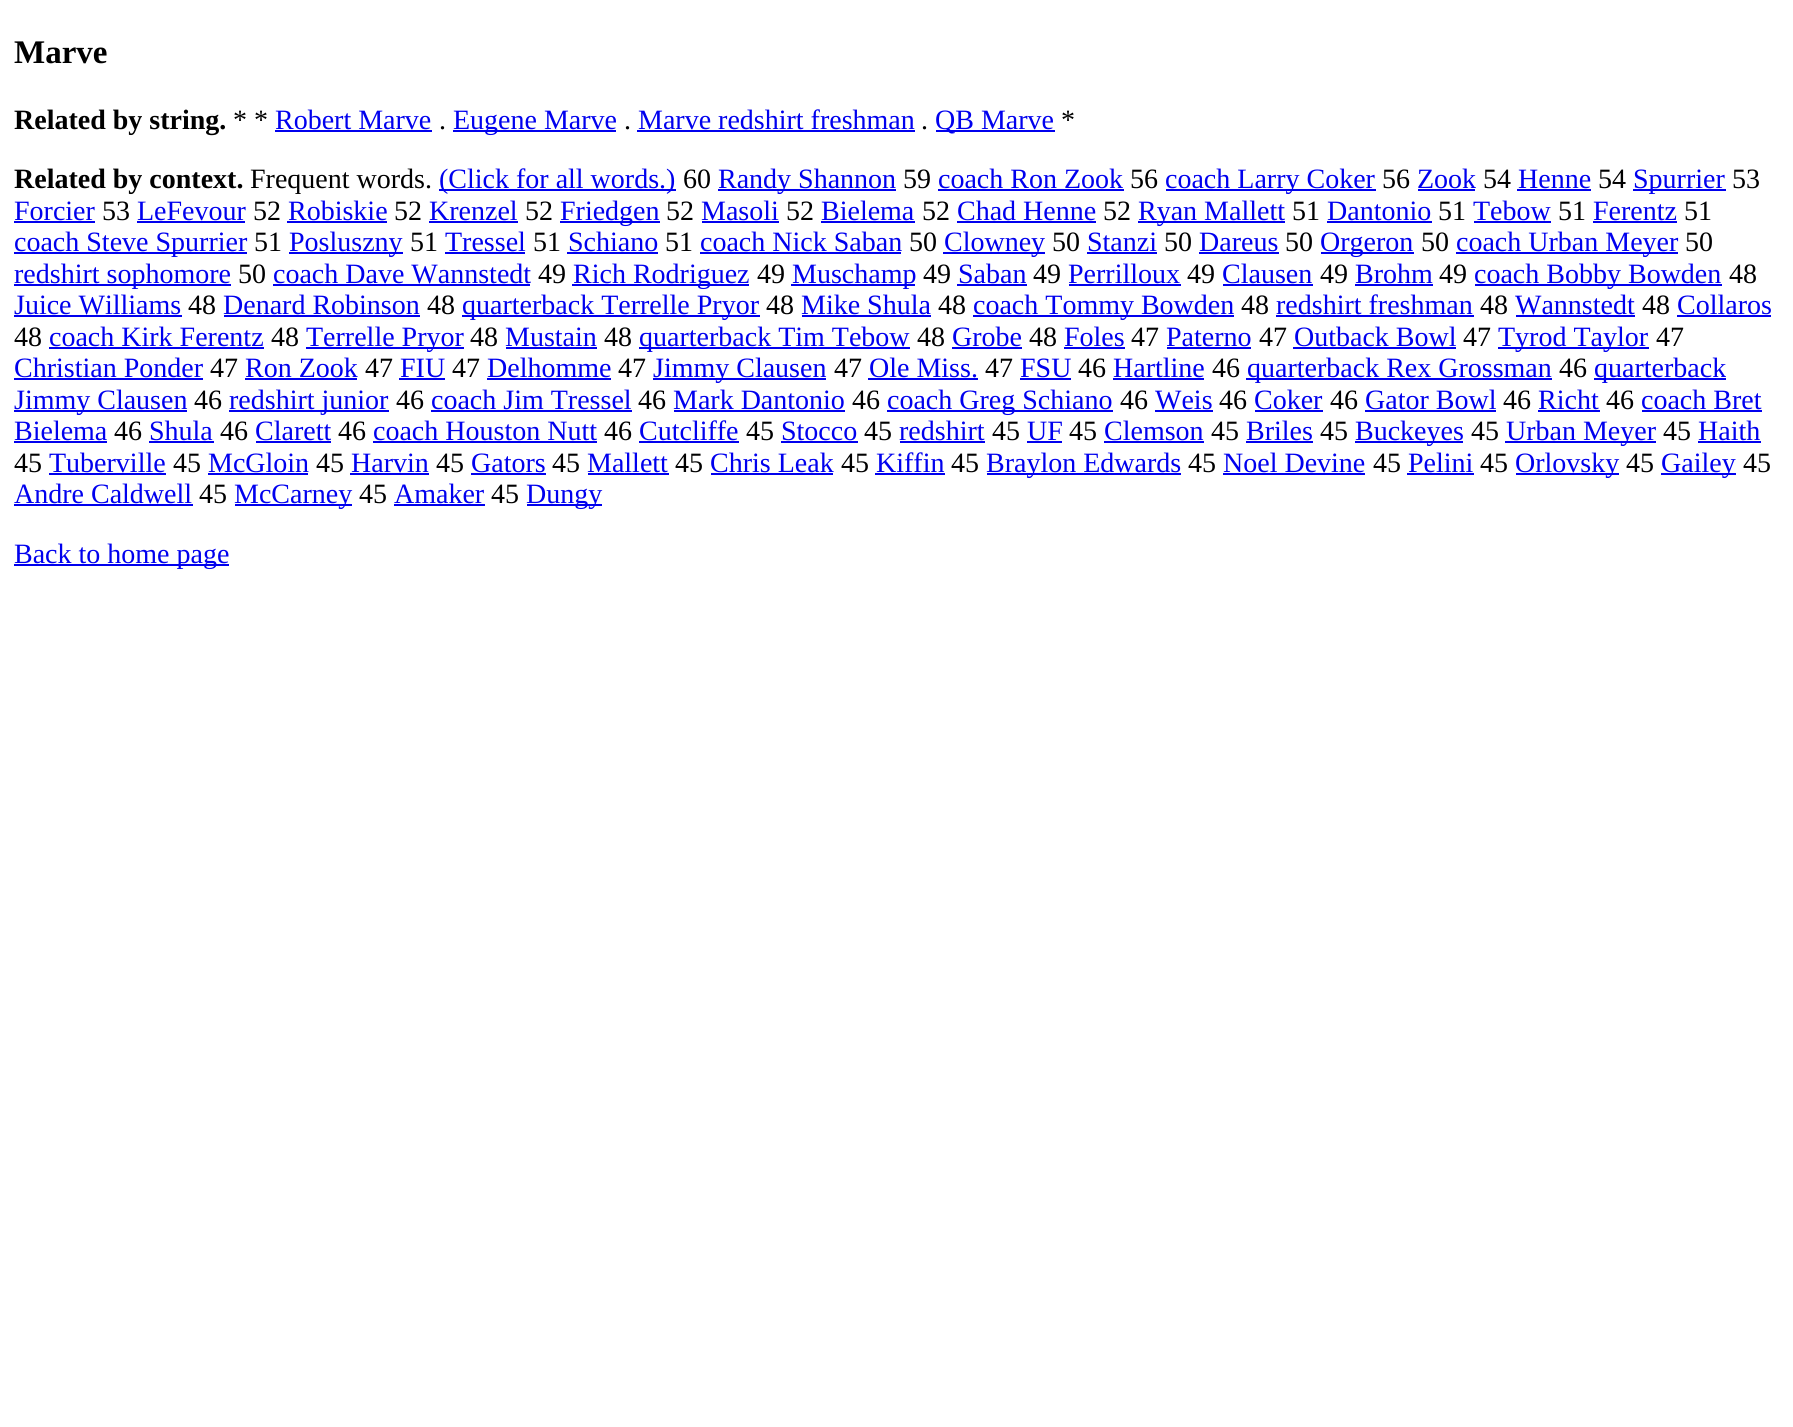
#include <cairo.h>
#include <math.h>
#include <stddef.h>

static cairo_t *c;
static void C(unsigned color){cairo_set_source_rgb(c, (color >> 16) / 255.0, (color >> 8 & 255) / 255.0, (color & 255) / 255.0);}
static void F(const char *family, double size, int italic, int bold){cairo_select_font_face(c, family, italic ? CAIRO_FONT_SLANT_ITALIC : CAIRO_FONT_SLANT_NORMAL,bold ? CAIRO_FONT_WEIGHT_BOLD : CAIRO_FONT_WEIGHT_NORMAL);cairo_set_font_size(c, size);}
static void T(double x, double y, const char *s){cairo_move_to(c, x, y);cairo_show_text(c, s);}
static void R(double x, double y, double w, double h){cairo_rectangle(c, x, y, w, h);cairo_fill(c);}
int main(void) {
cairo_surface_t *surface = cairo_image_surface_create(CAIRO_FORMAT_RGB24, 1793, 1427);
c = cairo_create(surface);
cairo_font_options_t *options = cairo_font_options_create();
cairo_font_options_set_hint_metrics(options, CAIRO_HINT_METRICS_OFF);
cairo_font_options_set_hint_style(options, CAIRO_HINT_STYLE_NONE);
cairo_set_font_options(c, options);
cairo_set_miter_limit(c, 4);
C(0xffffff);
cairo_paint(c);
F("Liberation Serif",33,0,1);
C(0x000000);
T(14,63,"Marve");
F("Liberation Serif",28,0,1);
T(14,129,"Related by string.");
F("Liberation Serif",28,0,0);
T(233,129,"* *");
C(0x0000ee);
T(275,129,"Robert Marve");
R(275,130,157,2);
R(453,130,163,2);
T(453,129,"Eugene Marve");
T(638,129,"Marve redshirt freshman");
R(637,130,278,2);
R(936,130,119,2);
T(935,129,"QB Marve");
C(0x000000);
T(1061,129,"*");
T(439,129,".");
T(624,129,".");
T(921,129,".");
F("Liberation Serif",28,0,1);
T(14,188,"Related by context.");
F("Liberation Serif",28,0,0);
T(250,188,"Frequent words.");
C(0x0000ee);
R(439,189,237,2);
T(439,188,"(Click for all words.)");
C(0x000000);
T(683,188,"60");
C(0x0000ee);
R(718,189,178,2);
T(718,188,"Randy Shannon");
C(0x000000);
T(903,188,"59");
C(0x0000ee);
T(938,188,"coach Ron Zook");
R(938,189,186,2);
C(0x000000);
T(1130,188,"56");
C(0x0000ee);
R(1166,189,210,2);
T(1165,188,"coach Larry Coker");
C(0x000000);
T(1382,188,"56");
C(0x0000ee);
T(1417,188,"Zook");
R(1418,189,57,2);
C(0x000000);
T(1483,188,"54");
C(0x0000ee);
T(1518,188,"Henne");
R(1517,189,74,2);
C(0x000000);
T(1598,188,"54");
C(0x0000ee);
R(1633,189,93,2);
T(1633,188,"Spurrier");
C(0x000000);
T(1732,188,"53");
C(0x0000ee);
T(14,220,"Forcier");
R(14,221,81,2);
C(0x000000);
T(102,220,"53");
C(0x0000ee);
T(137,220,"LeFevour");
R(137,221,108,2);
C(0x000000);
T(253,220,"52");
C(0x0000ee);
T(288,220,"Robiskie");
R(287,221,100,2);
C(0x000000);
T(394,220,"52");
C(0x0000ee);
T(429,220,"Krenzel");
R(429,221,89,2);
C(0x000000);
T(525,220,"52");
C(0x0000ee);
R(560,221,100,2);
T(560,220,"Friedgen");
C(0x000000);
T(666,220,"52");
C(0x0000ee);
T(701,220,"Masoli");
R(702,221,77,2);
C(0x000000);
T(786,220,"52");
C(0x0000ee);
T(821,220,"Bielema");
R(821,221,94,2);
C(0x000000);
T(922,220,"52");
C(0x0000ee);
T(957,220,"Chad Henne");
R(957,221,139,2);
C(0x000000);
T(1103,220,"52");
C(0x0000ee);
R(1138,221,147,2);
T(1138,220,"Ryan Mallett");
C(0x000000);
T(1292,220,"51");
C(0x0000ee);
T(1327,220,"Dantonio");
R(1327,221,105,2);
C(0x000000);
T(1438,220,"51");
C(0x0000ee);
T(1473,220,"Tebow");
R(1474,221,77,2);
C(0x000000);
T(1558,220,"51");
C(0x0000ee);
T(1593,220,"Ferentz");
R(1593,221,84,2);
C(0x000000);
T(1684,220,"51");
C(0x0000ee);
R(14,252,233,2);
T(14,251,"coach Steve Spurrier");
C(0x000000);
T(254,251,"51");
C(0x0000ee);
R(289,252,114,2);
T(289,251,"Posluszny");
C(0x000000);
T(410,251,"51");
C(0x0000ee);
T(445,251,"Tressel");
R(445,252,80,2);
C(0x000000);
T(533,251,"51");
C(0x0000ee);
T(568,251,"Schiano");
R(567,252,91,2);
C(0x000000);
T(665,251,"51");
C(0x0000ee);
T(700,251,"coach Nick Saban");
R(700,252,201,2);
C(0x000000);
T(909,251,"50");
C(0x0000ee);
R(943,252,102,2);
T(944,251,"Clowney");
C(0x000000);
T(1052,251,"50");
C(0x0000ee);
T(1087,251,"Stanzi");
R(1087,252,70,2);
C(0x000000);
T(1164,251,"50");
C(0x0000ee);
T(1199,251,"Dareus");
R(1199,252,80,2);
C(0x000000);
T(1285,251,"50");
C(0x0000ee);
R(1321,252,93,2);
T(1320,251,"Orgeron");
C(0x000000);
T(1421,251,"50");
C(0x0000ee);
R(1456,252,222,2);
T(1456,251,"coach Urban Meyer");
C(0x000000);
T(1685,251,"50");
C(0x0000ee);
R(14,284,217,2);
T(14,283,"redshirt sophomore");
C(0x000000);
T(238,283,"50");
C(0x0000ee);
T(273,283,"coach Dave Wannstedt");
R(273,284,257,2);
C(0x000000);
T(538,283,"49");
C(0x0000ee);
R(572,284,177,2);
T(573,283,"Rich Rodriguez");
C(0x000000);
T(757,283,"49");
C(0x0000ee);
R(791,284,124,2);
T(792,283,"Muschamp");
C(0x000000);
T(923,283,"49");
C(0x0000ee);
T(958,283,"Saban");
R(957,284,70,2);
C(0x000000);
T(1033,283,"49");
C(0x0000ee);
T(1068,283,"Perrilloux");
R(1069,284,112,2);
C(0x000000);
T(1187,283,"49");
C(0x0000ee);
T(1222,283,"Clausen");
R(1223,284,90,2);
C(0x000000);
T(1320,283,"49");
C(0x0000ee);
T(1355,283,"Brohm");
R(1355,284,78,2);
C(0x000000);
T(1439,283,"49");
C(0x0000ee);
R(1475,284,247,2);
T(1474,283,"coach Bobby Bowden");
C(0x000000);
T(1729,283,"48");
C(0x0000ee);
T(14,314,"Juice Williams");
R(14,315,168,2);
C(0x000000);
T(188,314,"48");
C(0x0000ee);
T(223,314,"Denard Robinson");
R(224,315,196,2);
C(0x000000);
T(427,314,"48");
C(0x0000ee);
R(462,315,298,2);
T(462,314,"quarterback Terrelle Pryor");
C(0x000000);
T(766,314,"48");
C(0x0000ee);
T(801,314,"Mike Shula");
R(802,315,129,2);
C(0x000000);
T(938,314,"48");
C(0x0000ee);
R(973,315,261,2);
T(973,314,"coach Tommy Bowden");
C(0x000000);
T(1241,314,"48");
C(0x0000ee);
T(1276,314,"redshirt freshman");
R(1276,315,198,2);
C(0x000000);
T(1480,314,"48");
C(0x0000ee);
T(1515,314,"Wannstedt");
R(1516,315,119,2);
C(0x000000);
T(1642,314,"48");
C(0x0000ee);
T(1677,314,"Collaros");
R(1677,315,94,2);
C(0x000000);
T(14,346,"48");
C(0x0000ee);
T(49,346,"coach Kirk Ferentz");
R(49,347,215,2);
C(0x000000);
T(271,346,"48");
C(0x0000ee);
R(306,347,158,2);
T(306,346,"Terrelle Pryor");
C(0x000000);
T(470,346,"48");
C(0x0000ee);
T(505,346,"Mustain");
R(506,347,91,2);
C(0x000000);
T(604,346,"48");
C(0x0000ee);
R(639,347,271,2);
T(639,346,"quarterback Tim Tebow");
C(0x000000);
T(917,346,"48");
C(0x0000ee);
T(952,346,"Grobe");
R(952,347,70,2);
C(0x000000);
T(1029,346,"48");
C(0x0000ee);
T(1064,346,"Foles");
R(1064,347,61,2);
C(0x000000);
T(1131,346,"47");
C(0x0000ee);
T(1166,346,"Paterno");
R(1167,347,84,2);
C(0x000000);
T(1259,346,"47");
C(0x0000ee);
T(1294,346,"Outback Bowl");
R(1293,347,163,2);
C(0x000000);
T(1463,346,"47");
C(0x0000ee);
R(1498,347,151,2);
T(1498,346,"Tyrod Taylor");
C(0x000000);
T(1656,346,"47");
C(0x0000ee);
T(14,377,"Christian Ponder");
R(14,378,189,2);
C(0x000000);
T(210,377,"47");
C(0x0000ee);
T(245,377,"Ron Zook");
R(245,378,112,2);
C(0x000000);
T(365,377,"47");
C(0x0000ee);
T(400,377,"FIU");
R(399,378,46,2);
C(0x000000);
T(452,377,"47");
C(0x0000ee);
T(487,377,"Delhomme");
R(487,378,124,2);
C(0x000000);
T(618,377,"47");
C(0x0000ee);
R(653,378,173,2);
T(653,377,"Jimmy Clausen");
C(0x000000);
T(834,377,"47");
C(0x0000ee);
T(869,377,"Ole Miss.");
R(868,378,110,2);
C(0x000000);
T(985,377,"47");
C(0x0000ee);
T(1020,377,"FSU");
R(1020,378,51,2);
C(0x000000);
T(1078,377,"46");
C(0x0000ee);
T(1113,377,"Hartline");
R(1113,378,91,2);
C(0x000000);
T(1212,377,"46");
C(0x0000ee);
R(1246,378,306,2);
T(1247,377,"quarterback Rex Grossman");
C(0x000000);
T(1559,377,"46");
C(0x0000ee);
R(1594,378,132,2);
T(1594,377,"quarterback");
R(14,410,173,2);
T(14,409,"Jimmy Clausen");
C(0x000000);
T(194,409,"46");
C(0x0000ee);
R(229,410,160,2);
T(229,409,"redshirt junior");
C(0x000000);
T(396,409,"46");
C(0x0000ee);
T(431,409,"coach Jim Tressel");
R(431,410,201,2);
C(0x000000);
T(638,409,"46");
C(0x0000ee);
T(673,409,"Mark Dantonio");
R(674,410,171,2);
C(0x000000);
T(852,409,"46");
C(0x0000ee);
R(887,410,226,2);
T(887,409,"coach Greg Schiano");
C(0x000000);
T(1120,409,"46");
C(0x0000ee);
T(1155,409,"Weis");
R(1155,410,58,2);
C(0x000000);
T(1219,409,"46");
C(0x0000ee);
T(1254,409,"Coker");
R(1255,410,68,2);
C(0x000000);
T(1330,409,"46");
C(0x0000ee);
T(1365,409,"Gator Bowl");
R(1365,410,131,2);
C(0x000000);
T(1503,409,"46");
C(0x0000ee);
T(1538,409,"Richt");
R(1538,410,62,2);
C(0x000000);
T(1606,409,"46");
C(0x0000ee);
T(1641,409,"coach Bret");
R(1642,410,120,2);
T(14,440,"Bielema");
R(14,441,93,2);
C(0x000000);
T(114,440,"46");
C(0x0000ee);
T(149,440,"Shula");
R(149,441,65,2);
C(0x000000);
T(220,440,"46");
C(0x0000ee);
T(255,440,"Clarett");
R(256,441,75,2);
C(0x000000);
T(338,440,"46");
C(0x0000ee);
T(373,440,"coach Houston Nutt");
R(373,441,224,2);
C(0x000000);
T(604,440,"46");
C(0x0000ee);
T(639,440,"Cutcliffe");
R(639,441,100,2);
C(0x000000);
T(746,440,"45");
C(0x0000ee);
T(781,440,"Stocco");
R(781,441,77,2);
C(0x000000);
T(864,440,"45");
C(0x0000ee);
T(899,440,"redshirt");
R(900,441,85,2);
C(0x000000);
T(992,440,"45");
C(0x0000ee);
T(1027,440,"UF");
R(1027,441,35,2);
C(0x000000);
T(1069,440,"45");
C(0x0000ee);
T(1104,440,"Clemson");
R(1104,441,100,2);
C(0x000000);
T(1211,440,"45");
C(0x0000ee);
T(1246,440,"Briles");
R(1246,441,67,2);
C(0x000000);
T(1320,440,"45");
C(0x0000ee);
R(1355,441,108,2);
T(1355,440,"Buckeyes");
C(0x000000);
T(1471,440,"45");
C(0x0000ee);
R(1505,441,151,2);
T(1506,440,"Urban Meyer");
C(0x000000);
T(1663,440,"45");
C(0x0000ee);
T(1698,440,"Haith");
R(1698,441,63,2);
C(0x000000);
T(14,472,"45");
C(0x0000ee);
T(49,472,"Tuberville");
R(49,473,117,2);
C(0x000000);
T(173,472,"45");
C(0x0000ee);
T(208,472,"McGloin");
R(208,473,100,2);
C(0x000000);
T(316,472,"45");
C(0x0000ee);
T(351,472,"Harvin");
R(350,473,79,2);
C(0x000000);
T(436,472,"45");
C(0x0000ee);
T(471,472,"Gators");
R(471,473,75,2);
C(0x000000);
T(552,472,"45");
C(0x0000ee);
T(587,472,"Mallett");
R(588,473,81,2);
C(0x000000);
T(675,472,"45");
C(0x0000ee);
T(710,472,"Chris Leak");
R(711,473,122,2);
C(0x000000);
T(841,472,"45");
C(0x0000ee);
T(876,472,"Kiffin");
R(875,473,70,2);
C(0x000000);
T(951,472,"45");
C(0x0000ee);
R(987,473,194,2);
T(986,472,"Braylon Edwards");
C(0x000000);
T(1188,472,"45");
C(0x0000ee);
T(1223,472,"Noel Devine");
R(1223,473,142,2);
C(0x000000);
T(1373,472,"45");
C(0x0000ee);
T(1408,472,"Pelini");
R(1407,473,67,2);
C(0x000000);
T(1480,472,"45");
C(0x0000ee);
R(1516,473,103,2);
T(1515,472,"Orlovsky");
C(0x000000);
T(1626,472,"45");
C(0x0000ee);
R(1661,473,75,2);
T(1661,472,"Gailey");
C(0x000000);
T(1743,472,"45");
C(0x0000ee);
T(14,503,"Andre Caldwell");
R(14,504,179,2);
C(0x000000);
T(199,503,"45");
C(0x0000ee);
R(235,504,117,2);
T(234,503,"McCarney");
C(0x000000);
T(359,503,"45");
C(0x0000ee);
T(394,503,"Amaker");
R(394,504,91,2);
C(0x000000);
T(491,503,"45");
C(0x0000ee);
R(527,504,75,2);
T(526,503,"Dungy");
R(14,564,215,2);
T(14,563,"Back to home page");
cairo_surface_write_to_png(surface, "o.png");
cairo_font_options_destroy(options);
cairo_destroy(c);
cairo_surface_destroy(surface);
return 0;
}
